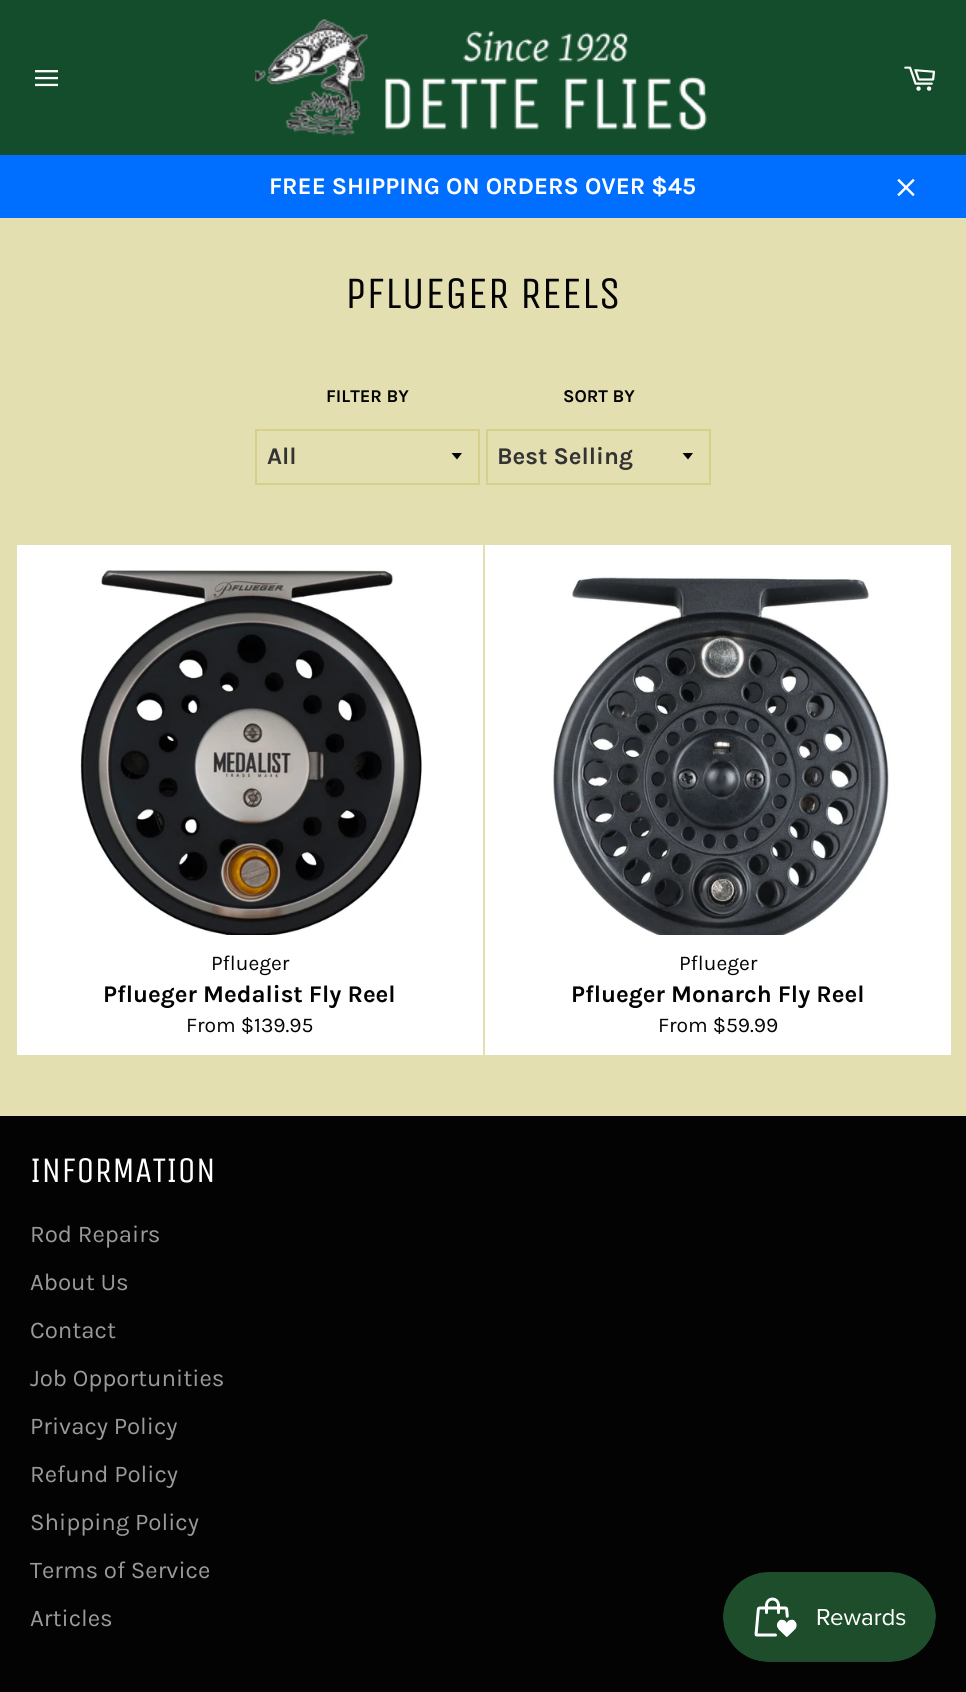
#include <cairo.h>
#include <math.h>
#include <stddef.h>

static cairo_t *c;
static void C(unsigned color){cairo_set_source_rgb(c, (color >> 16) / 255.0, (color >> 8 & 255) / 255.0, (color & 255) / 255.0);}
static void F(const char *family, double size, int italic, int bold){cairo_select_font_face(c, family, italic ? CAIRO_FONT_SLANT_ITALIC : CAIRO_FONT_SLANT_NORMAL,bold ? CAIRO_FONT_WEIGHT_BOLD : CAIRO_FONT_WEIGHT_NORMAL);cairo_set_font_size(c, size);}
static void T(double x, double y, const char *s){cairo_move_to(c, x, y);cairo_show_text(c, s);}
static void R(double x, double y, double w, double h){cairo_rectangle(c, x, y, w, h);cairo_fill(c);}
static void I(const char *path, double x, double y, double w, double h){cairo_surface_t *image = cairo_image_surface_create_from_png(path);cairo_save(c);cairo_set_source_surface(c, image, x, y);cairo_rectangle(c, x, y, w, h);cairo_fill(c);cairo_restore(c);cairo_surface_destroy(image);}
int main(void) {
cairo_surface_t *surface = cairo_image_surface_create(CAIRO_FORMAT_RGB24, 966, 1692);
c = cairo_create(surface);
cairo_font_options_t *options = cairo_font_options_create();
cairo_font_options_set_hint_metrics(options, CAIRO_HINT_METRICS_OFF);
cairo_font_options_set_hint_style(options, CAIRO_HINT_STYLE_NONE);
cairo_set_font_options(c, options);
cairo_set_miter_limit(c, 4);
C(0xe4dfb0);
cairo_paint(c);
C(0x134d2b);
R(0,0,966,155);
I("1.png",35,70,23,17);
I("2.png",255,19,452,117);
I("3.png",904,66,31,25);
C(0x006eff);
R(0,155,966,63);
F("Karla",24,0,1);
C(0xffffff);
T(269,194,"FREE SHIPPING ON ORDERS OVER $45");
I("4.png",897,178,18,19);
F("Unica One",45,0,0);
C(0x030303);
T(345,308,"PFLUEGER REELS");
F("Karla",18,0,1);
T(326,402,"FILTER BY");
C(0x000000);
cairo_new_path(c);
cairo_move_to(c,451.5,453);
cairo_line_to(c,457,459.5);
cairo_line_to(c,462,453);
cairo_close_path(c);
cairo_fill(c);
cairo_rectangle(c,256,430,223,54);
C(0xd7d08a);
cairo_stroke(c);
F("Karla",24,0,1);
C(0x333333);
T(267,464,"All");
F("Karla",18,0,1);
C(0x030303);
T(563,402,"SORT BY");
C(0x000000);
cairo_new_path(c);
cairo_move_to(c,682.5,453);
cairo_line_to(c,688,459.5);
cairo_line_to(c,693,453);
cairo_close_path(c);
cairo_fill(c);
cairo_rectangle(c,487,430,223,54);
C(0xd7d08a);
cairo_stroke(c);
F("Karla",24,0,1);
C(0x333333);
T(497,464,"Best Selling");
C(0xffffff);
R(17,545,466,510);
I("5.png",80,570,342,365);
F("Karla",21,0,0);
C(0x030303);
T(211,970,"Pflueger");
F("Karla",24,0,1);
T(103,1002,"Pflueger Medalist Fly Reel");
F("Karla",21,0,0);
T(186,1032,"From $139.95");
C(0xffffff);
R(485,545,466,510);
I("6.png",552,576,338,359);
C(0x030303);
T(679,970,"Pflueger");
F("Karla",24,0,1);
T(571,1002,"Pflueger Monarch Fly Reel");
F("Karla",21,0,0);
T(658,1032,"From $59.99");
R(0,1116,966,576);
F("Unica One",36,0,0);
C(0xffffff);
T(30,1182,"INFORMATION");
F("Karla",24,0,0);
C(0x9a9a9a);
T(30,1242,"Rod Repairs");
T(30,1290,"About Us");
T(30,1338,"Contact");
T(30,1386,"Job Opportunities");
T(30,1434,"Privacy Policy");
T(30,1482,"Refund Policy");
T(30,1530,"Shipping Policy");
T(30,1578,"Terms of Service");
T(30,1626,"Articles");
I("7.png",723,1572,213,90);
cairo_surface_write_to_png(surface, "o.png");
cairo_font_options_destroy(options);
cairo_destroy(c);
cairo_surface_destroy(surface);
return 0;
}
